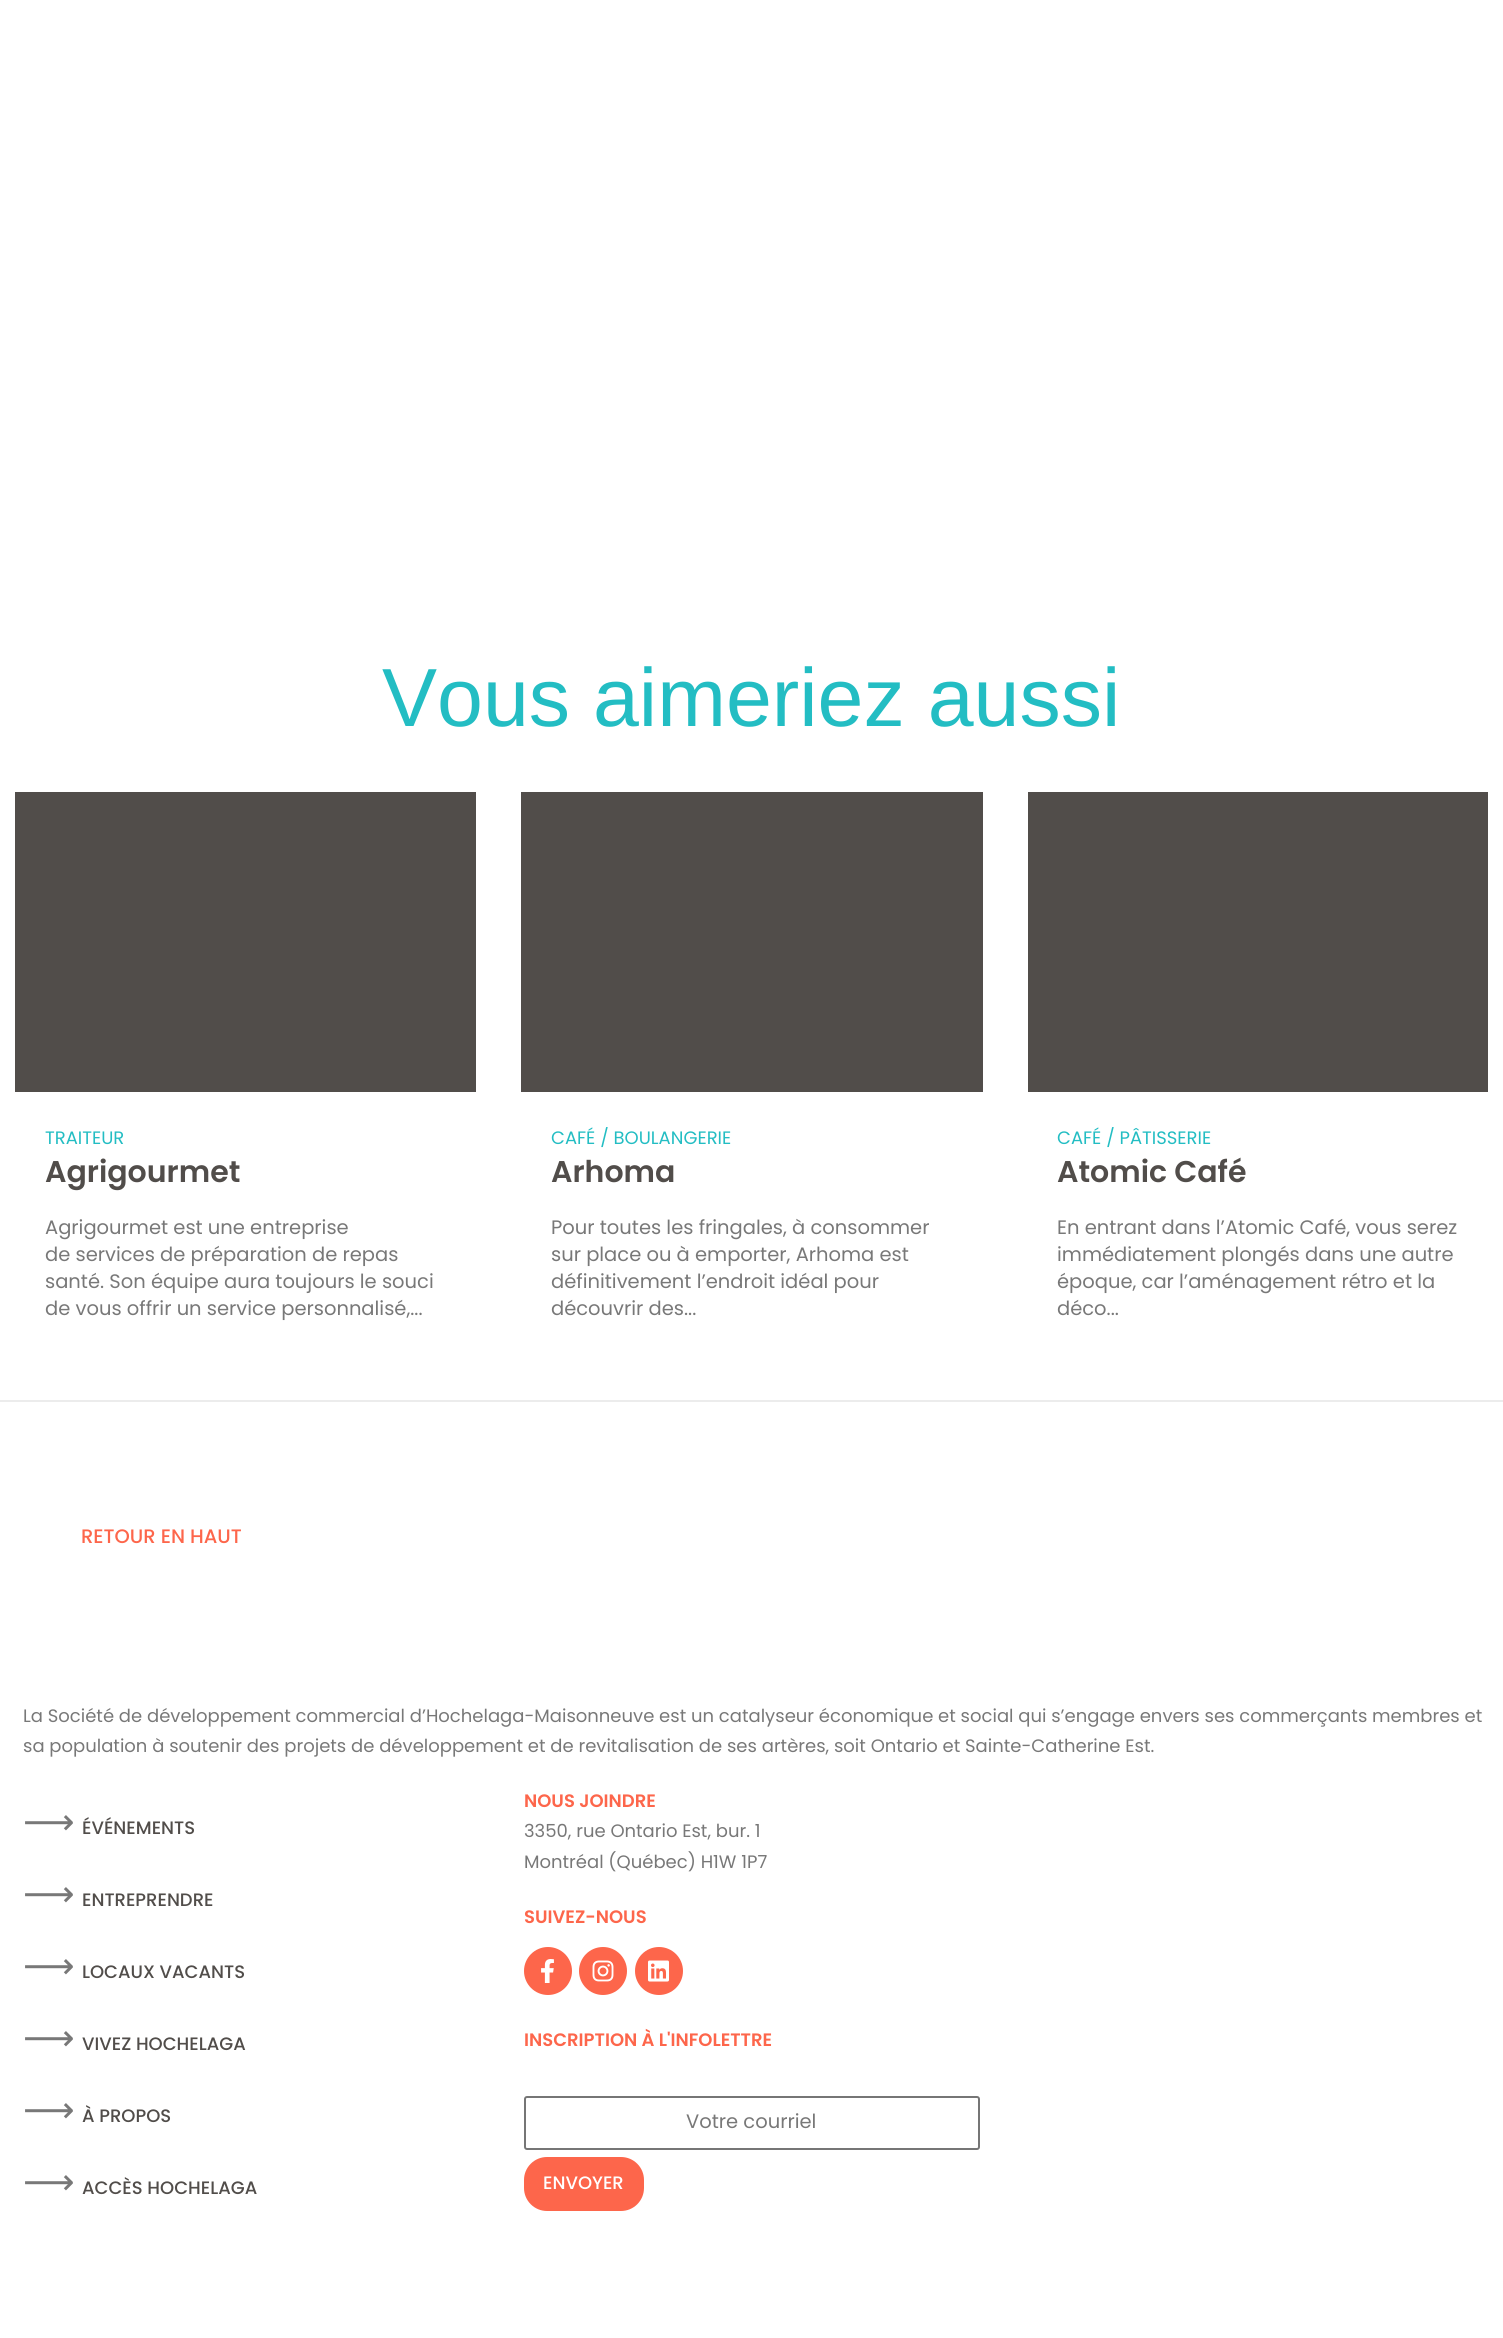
#include <cairo.h>
#include <math.h>
#include <stddef.h>

static cairo_t *c;
static void C(unsigned color){cairo_set_source_rgb(c, (color >> 16) / 255.0, (color >> 8 & 255) / 255.0, (color & 255) / 255.0);}
static void F(const char *family, double size, int italic, int bold){cairo_select_font_face(c, family, italic ? CAIRO_FONT_SLANT_ITALIC : CAIRO_FONT_SLANT_NORMAL,bold ? CAIRO_FONT_WEIGHT_BOLD : CAIRO_FONT_WEIGHT_NORMAL);cairo_set_font_size(c, size);}
static void T(double x, double y, const char *s){cairo_move_to(c, x, y);cairo_show_text(c, s);}
static void R(double x, double y, double w, double h){cairo_rectangle(c, x, y, w, h);cairo_fill(c);}
static void Q(double x, double y, double w, double h, double r){cairo_new_sub_path(c);cairo_arc(c, x + w - r, y + h - r, r, 0, M_PI / 2);cairo_arc(c, x + r, y + h - r, r, M_PI / 2, M_PI);cairo_arc(c, x + r, y + r, r, M_PI, 1.5 * M_PI);cairo_arc(c, x + w - r, y + r, r, 1.5 * M_PI, 2 * M_PI);cairo_close_path(c);}
static void I(const char *path, double x, double y, double w, double h){cairo_surface_t *image = cairo_image_surface_create_from_png(path);cairo_save(c);cairo_set_source_surface(c, image, x, y);cairo_rectangle(c, x, y, w, h);cairo_fill(c);cairo_restore(c);cairo_surface_destroy(image);}
int main(void) {
cairo_surface_t *surface = cairo_image_surface_create(CAIRO_FORMAT_RGB24, 1503, 2338);
c = cairo_create(surface);
cairo_font_options_t *options = cairo_font_options_create();
cairo_font_options_set_hint_metrics(options, CAIRO_HINT_METRICS_OFF);
cairo_font_options_set_hint_style(options, CAIRO_HINT_STYLE_NONE);
cairo_set_font_options(c, options);
cairo_set_miter_limit(c, 4);
C(0xffffff);
cairo_paint(c);
F("Liberation Sans",82.5,0,0);
C(0x23bdc3);
T(382,726,"Vous aimeriez aussi");
C(0x514d4a);
R(15,792,461,300);
F("Poppins",18,0,0);
C(0x23bdc3);
T(45,1144,"TRAITEUR");
F("Poppins SemiBold",30,0,0);
C(0x514d4a);
T(45,1182,"Agrigourmet");
F("Poppins",19.5,0,0);
C(0x787878);
T(45,1234,"Agrigourmet est une entreprise");
T(45,1261,"de services de préparation de repas");
T(45,1288,"santé. Son équipe aura toujours le souci");
T(45,1315,"de vous offrir un service personnalisé,...");
C(0x514d4a);
R(521,792,462,300);
F("Poppins",18,0,0);
C(0x23bdc3);
T(551,1144,"CAFÉ / BOULANGERIE");
F("Poppins SemiBold",30,0,0);
C(0x514d4a);
T(551,1182,"Arhoma");
F("Poppins",19.5,0,0);
C(0x787878);
T(551,1234,"Pour toutes les fringales, à consommer");
T(551,1261,"sur place ou à emporter, Arhoma est");
T(551,1288,"définitivement l’endroit idéal pour");
T(551,1315,"découvrir des...");
C(0x514d4a);
R(1028,792,460,300);
F("Poppins",18,0,0);
C(0x23bdc3);
T(1057,1144,"CAFÉ / PÂTISSERIE");
F("Poppins SemiBold",30,0,0);
C(0x514d4a);
T(1057,1182,"Atomic Café");
F("Poppins",19.5,0,0);
C(0x787878);
T(1057,1234,"En entrant dans l’Atomic Café, vous serez");
T(1057,1261,"immédiatement plongés dans une autre");
T(1057,1288,"époque, car l’aménagement rétro et la");
T(1057,1315,"déco...");
C(0xececec);
R(0,1400,1503,2);
F("Poppins Medium",19.5,0,0);
C(0xfd664b);
T(81,1543,"RETOUR EN HAUT");
F("Poppins",18,0,0);
C(0x787878);
T(23,1722,"La Société de développement commercial d’Hochelaga-Maisonneuve est un catalyseur économique et social qui s’engage envers ses commerçants membres et");
T(23,1752,"sa population à soutenir des projets de développement et de revitalisation de ses artères, soit Ontario et Sainte-Catherine Est.");
F("DejaVu Sans",36,0,0);
T(23,1834,"⟶");
F("Poppins Medium",18,0,0);
C(0x514d4a);
T(82,1834,"ÉVÉNEMENTS");
F("DejaVu Sans",36,0,0);
C(0x787878);
T(23,1906,"⟶");
F("Poppins Medium",18,0,0);
C(0x514d4a);
T(82,1906,"ENTREPRENDRE");
F("DejaVu Sans",36,0,0);
C(0x787878);
T(23,1978,"⟶");
F("Poppins Medium",18,0,0);
C(0x514d4a);
T(82,1978,"LOCAUX VACANTS");
F("DejaVu Sans",36,0,0);
C(0x787878);
T(23,2050,"⟶");
F("Poppins Medium",18,0,0);
C(0x514d4a);
T(82,2050,"VIVEZ HOCHELAGA");
F("DejaVu Sans",36,0,0);
C(0x787878);
T(23,2122,"⟶");
F("Poppins Medium",18,0,0);
C(0x514d4a);
T(82,2122,"À PROPOS");
F("DejaVu Sans",36,0,0);
C(0x787878);
T(23,2194,"⟶");
F("Poppins Medium",18,0,0);
C(0x514d4a);
T(82,2194,"ACCÈS HOCHELAGA");
F("Poppins SemiBold",18,0,0);
C(0xfd664b);
T(524,1807,"NOUS JOINDRE");
F("Poppins",18,0,0);
C(0x787878);
T(524,1837,"3350, rue Ontario Est, bur. 1");
T(524,1868,"Montréal (Québec) H1W 1P7");
F("Poppins SemiBold",18,0,0);
C(0xfd664b);
T(524,1923,"SUIVEZ-NOUS");
cairo_new_path(c);
cairo_arc(c,548,1971,24,0,2 * M_PI);
cairo_fill(c);
I("1.png",541,1959,13,24);
cairo_arc(c,603,1971,24,0,2 * M_PI);
cairo_fill(c);
I("2.png",592,1960,22,22);
cairo_arc(c,659,1971,24,0,2 * M_PI);
cairo_fill(c);
I("3.png",648,1960,21,22);
T(524,2046,"INSCRIPTION À L'INFOLETTRE");
Q(525,2097,454,52,2);
C(0x767676);
cairo_stroke(c);
F("Poppins",19.5,0,0);
C(0x787878);
T(686,2128,"Votre courriel");
C(0xfd664b);
Q(524,2157,120,54,23);
cairo_fill(c);
F("Poppins Medium",18,0,0);
C(0xffffff);
T(543,2189,"ENVOYER");
cairo_surface_write_to_png(surface, "o.png");
cairo_font_options_destroy(options);
cairo_destroy(c);
cairo_surface_destroy(surface);
return 0;
}
